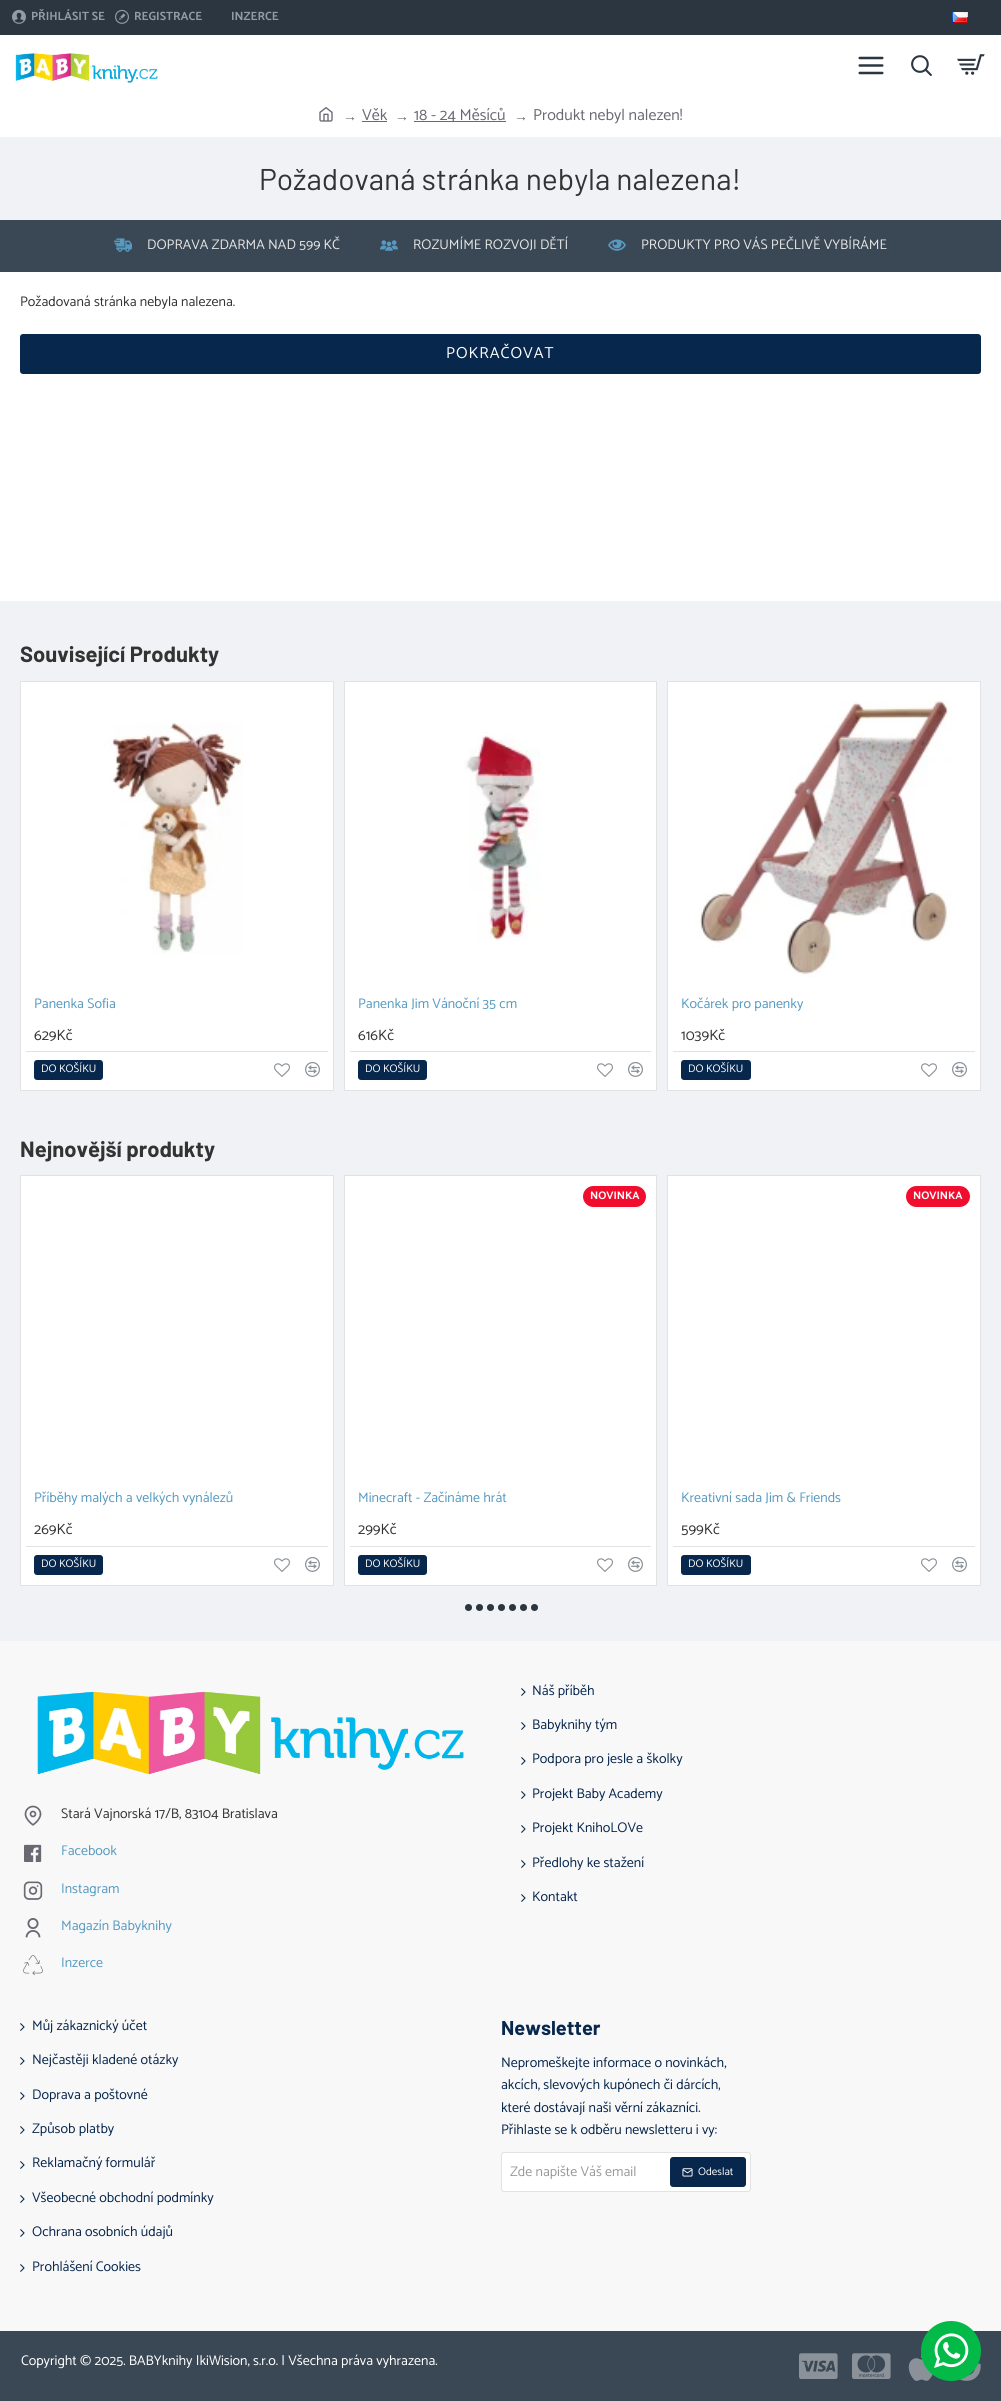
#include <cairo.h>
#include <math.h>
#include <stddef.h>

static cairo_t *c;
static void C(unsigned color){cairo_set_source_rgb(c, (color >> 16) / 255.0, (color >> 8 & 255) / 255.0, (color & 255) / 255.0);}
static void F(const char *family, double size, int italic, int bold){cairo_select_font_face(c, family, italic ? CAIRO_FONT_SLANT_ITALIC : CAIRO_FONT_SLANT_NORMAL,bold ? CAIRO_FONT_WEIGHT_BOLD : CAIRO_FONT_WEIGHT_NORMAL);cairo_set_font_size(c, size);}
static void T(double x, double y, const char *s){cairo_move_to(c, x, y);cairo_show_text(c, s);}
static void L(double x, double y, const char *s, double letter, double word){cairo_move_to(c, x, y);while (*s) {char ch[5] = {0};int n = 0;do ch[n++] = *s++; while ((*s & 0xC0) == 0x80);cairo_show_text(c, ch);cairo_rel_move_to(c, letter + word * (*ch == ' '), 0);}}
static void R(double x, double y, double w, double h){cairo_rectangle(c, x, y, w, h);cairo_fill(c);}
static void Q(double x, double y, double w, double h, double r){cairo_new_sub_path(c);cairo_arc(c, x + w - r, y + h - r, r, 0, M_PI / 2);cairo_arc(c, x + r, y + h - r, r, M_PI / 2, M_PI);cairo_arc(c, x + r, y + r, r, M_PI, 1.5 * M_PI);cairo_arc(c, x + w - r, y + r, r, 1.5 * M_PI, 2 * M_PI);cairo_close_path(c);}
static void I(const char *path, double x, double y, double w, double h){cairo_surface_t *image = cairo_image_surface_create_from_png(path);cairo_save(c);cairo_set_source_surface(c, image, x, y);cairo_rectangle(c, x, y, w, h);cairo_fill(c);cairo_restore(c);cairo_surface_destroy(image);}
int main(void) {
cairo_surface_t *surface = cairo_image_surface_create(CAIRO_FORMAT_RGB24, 1001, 2401);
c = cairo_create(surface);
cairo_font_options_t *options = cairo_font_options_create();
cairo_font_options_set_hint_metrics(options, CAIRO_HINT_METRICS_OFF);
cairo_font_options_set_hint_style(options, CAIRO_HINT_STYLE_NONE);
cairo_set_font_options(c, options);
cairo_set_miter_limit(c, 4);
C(0xffffff);
cairo_paint(c);
C(0x2c3640);
R(0,0,1001,35);
I("1.png",12,9,14,15);
F("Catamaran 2 Thin",12,0,0);
C(0x8f9da6);
T(31,20,"PŘIHLÁSIT SE");
I("2.png",115,9,14,15);
T(134,20,"REGISTRACE");
T(231,20,"INZERCE");
I("3.png",952,12,16,11);
I("4.png",15,53,143,30);
I("5.png",858,56,26,19);
I("6.png",911,55,21,21);
I("7.png",957,54,28,21);
I("8.png",319,107,14,15);
F("Liberation Serif",14,0,0);
C(0x696973);
T(343,121,"→");
F("Catamaran Thin",16,0,0);
T(362,120,"Věk");
R(362,121,25,1);
F("Liberation Serif",14,0,0);
T(395,121,"→");
R(414,121,92,1);
F("Catamaran Thin",16,0,0);
T(414,120,"18 - 24 Měsíců");
F("Liberation Serif",14,0,0);
T(514,121,"→");
F("Catamaran Thin",16,0,0);
T(533,120,"Produkt nebyl nalezen!");
C(0xf0f2f5);
R(0,137,1001,83);
F("Barlow",30,0,0);
C(0x333333);
T(259,190,"Požadovaná stránka nebyla nalezena!");
C(0x3a4754);
R(0,220,1001,52);
I("9.png",114,238,18,14);
F("Catamaran Thin",14,0,0);
C(0xe6e6e6);
T(147,249,"DOPRAVA ZDARMA NAD 599 KČ");
I("10.png",380,240,18,11);
T(413,249,"ROZUMÍME ROZVOJI DĚTÍ");
I("11.png",608,239,18,12);
T(641,249,"PRODUKTY PRO VÁS PEČLIVĚ VYBÍRÁME");
C(0x333333);
T(20,306,"Požadovaná stránka nebyla nalezena.");
C(0x08274d);
Q(20,334,961,40,3);
cairo_fill(c);
F("Catamaran Thin",16,0,0);
C(0xffffff);
L(446,358,"POKRAČOVAT",1,0);
C(0xf0f2f5);
R(0,601,1001,1040);
F("Barlow",22,0,1);
C(0x333333);
T(20,662,"Související Produkty");
C(0xffffff);
cairo_rectangle(c,20.5,681.5,313,409);
cairo_fill_preserve(c);
C(0xe2e2e2);
cairo_set_line_width(c,1);
cairo_stroke(c);
I("12.png",104,723,139,231);
F("Catamaran Thin",14,0,0);
C(0x579ac1);
T(34,1008,"Panenka Sofia");
F("Catamaran Thin",15,0,0);
C(0x333333);
T(34,1040,"629Kč");
C(0xe2e2e2);
R(26,1051,302,1);
C(0x08274d);
Q(34,1060,69,20,3);
cairo_fill(c);
F("Catamaran Thin",11,0,0);
C(0xffffff);
T(41,1072,"DO KOŠÍKU");
I("13.png",274,1063,16,14);
I("14.png",305,1062,15,15);
cairo_rectangle(c,344.5,681.5,312,409);
cairo_fill_preserve(c);
C(0xe2e2e2);
cairo_stroke(c);
I("15.png",464,732,77,209);
F("Catamaran Thin",14,0,0);
C(0x579ac1);
T(358,1008,"Panenka Jim Vánoční 35 cm");
F("Catamaran Thin",15,0,0);
C(0x333333);
T(358,1040,"616Kč");
C(0xe2e2e2);
R(350,1051,301,1);
C(0x08274d);
Q(358,1060,69,20,3);
cairo_fill(c);
F("Catamaran Thin",11,0,0);
C(0xffffff);
T(365,1072,"DO KOŠÍKU");
I("13.png",597,1063,16,14);
I("14.png",628,1062,15,15);
cairo_rectangle(c,667.5,681.5,313,409);
cairo_fill_preserve(c);
C(0xe2e2e2);
cairo_stroke(c);
I("16.png",699,700,253,277);
F("Catamaran Thin",14,0,0);
C(0x579ac1);
T(681,1008,"Kočárek pro panenky");
F("Catamaran Thin",15,0,0);
C(0x333333);
T(681,1040,"1039Kč");
C(0xe2e2e2);
R(673,1051,302,1);
C(0x08274d);
Q(681,1060,70,20,3);
cairo_fill(c);
F("Catamaran Thin",11,0,0);
C(0xffffff);
T(688,1072,"DO KOŠÍKU");
I("13.png",921,1063,16,14);
I("14.png",952,1062,15,15);
F("Barlow",22,0,1);
C(0x333333);
T(20,1157,"Nejnovější produkty");
C(0xffffff);
cairo_rectangle(c,20.5,1175.5,313,410);
cairo_fill_preserve(c);
C(0xe2e2e2);
cairo_stroke(c);
F("Catamaran Thin",14,0,0);
C(0x579ac1);
T(34,1502,"Příběhy malých a velkých vynálezů");
F("Catamaran Thin",15,0,0);
C(0x333333);
T(34,1534,"269Kč");
C(0xe2e2e2);
R(26,1546,302,1);
C(0x08274d);
Q(34,1555,69,20,3);
cairo_fill(c);
F("Catamaran Thin",11,0,0);
C(0xffffff);
T(41,1567,"DO KOŠÍKU");
I("13.png",274,1558,16,14);
I("14.png",305,1557,15,15);
cairo_rectangle(c,344.5,1175.5,312,410);
cairo_fill_preserve(c);
C(0xe2e2e2);
cairo_stroke(c);
C(0xf10d2d);
Q(583,1186,63,21,10.5);
cairo_fill(c);
F("Catamaran 2 Thin",11,0,0);
C(0xffffff);
T(590,1199,"NOVINKA");
F("Catamaran Thin",14,0,0);
C(0x579ac1);
T(358,1502,"Minecraft - Začínáme hrát");
F("Catamaran Thin",15,0,0);
C(0x333333);
T(358,1534,"299Kč");
C(0xe2e2e2);
R(350,1546,301,1);
C(0x08274d);
Q(358,1555,69,20,3);
cairo_fill(c);
F("Catamaran Thin",11,0,0);
C(0xffffff);
T(365,1567,"DO KOŠÍKU");
I("13.png",597,1558,16,14);
I("14.png",628,1557,15,15);
cairo_rectangle(c,667.5,1175.5,313,410);
cairo_fill_preserve(c);
C(0xe2e2e2);
cairo_stroke(c);
C(0xf10d2d);
Q(906,1186,64,21,10.5);
cairo_fill(c);
F("Catamaran 2 Thin",11,0,0);
C(0xffffff);
T(913,1199,"NOVINKA");
F("Catamaran Thin",14,0,0);
C(0x579ac1);
T(681,1502,"Kreativní sada Jim & Friends");
F("Catamaran Thin",15,0,0);
C(0x333333);
T(681,1534,"599Kč");
C(0xe2e2e2);
R(673,1546,302,1);
C(0x08274d);
Q(681,1555,70,20,3);
cairo_fill(c);
F("Catamaran Thin",11,0,0);
C(0xffffff);
T(688,1567,"DO KOŠÍKU");
I("13.png",921,1558,16,14);
I("14.png",952,1557,15,15);
C(0x2c3640);
cairo_arc(c,468.5,1607.5,3.5,0,2 * M_PI);
cairo_fill(c);
cairo_arc(c,479.5,1607.5,3.5,0,2 * M_PI);
cairo_fill(c);
cairo_arc(c,490.5,1607.5,3.5,0,2 * M_PI);
cairo_fill(c);
cairo_arc(c,501.5,1607.5,3.5,0,2 * M_PI);
cairo_fill(c);
cairo_arc(c,512.5,1607.5,3.5,0,2 * M_PI);
cairo_fill(c);
cairo_arc(c,523.5,1607.5,3.5,0,2 * M_PI);
cairo_fill(c);
cairo_arc(c,534.5,1607.5,3.5,0,2 * M_PI);
cairo_fill(c);
C(0xf8f8f8);
R(0,1641,1001,690);
I("17.png",37,1691,427,84);
I("18.png",24,1805,18,21);
F("Catamaran Thin",14,0,0);
C(0x333333);
T(61,1818,"Stará Vajnorská 17/B, 83104 Bratislava");
I("19.png",24,1844,18,18);
C(0x579ac1);
T(61,1855,"Facebook");
I("20.png",23,1881,20,19);
T(61,1893,"Instagram");
I("21.png",25,1918,16,20);
T(61,1930,"Magazín Babyknihy");
I("22.png",23,1955,20,21);
T(61,1967,"Inzerce");
I("23.png",521,1688,5,8);
C(0x08274d);
T(532,1695,"Náš příběh");
I("23.png",521,1722,5,8);
T(532,1729,"Babyknihy tým");
I("23.png",521,1757,5,8);
T(532,1763,"Podpora pro jesle a školky");
I("23.png",521,1791,5,8);
T(532,1798,"Projekt Baby Academy");
I("23.png",521,1825,5,8);
T(532,1832,"Projekt KnihoLOVe");
I("23.png",521,1860,5,8);
T(532,1867,"Předlohy ke stažení");
I("23.png",521,1894,5,8);
T(532,1901,"Kontakt");
I("23.png",20,2023,5,8);
T(32,2030,"Můj zákaznický účet");
I("23.png",20,2057,5,8);
T(32,2064,"Nejčastěji kladené otázky");
I("23.png",20,2092,5,8);
T(32,2099,"Doprava a poštovné");
I("23.png",20,2126,5,8);
T(32,2133,"Způsob platby");
I("23.png",20,2161,5,8);
T(32,2167,"Reklamačný formulář");
I("23.png",20,2195,5,8);
T(32,2202,"Všeobecné obchodní podmínky");
I("23.png",20,2229,5,8);
T(32,2236,"Ochrana osobních údajů");
I("23.png",20,2264,5,8);
T(32,2271,"Prohlášení Cookies");
F("Barlow",20,0,1);
T(501,2035,"Newsletter");
F("Catamaran Thin",14,0,0);
T(501,2067,"Nepromeškejte informace o novinkách,");
T(501,2089,"akcích, slevových kupónech či dárcích,");
T(501,2112,"které dostávají naši věrní zákazníci.");
T(501,2134,"Přihlaste se k odběru newsletteru i vy:");
C(0xffffff);
Q(501.5,2152.5,249,39,2.5);
cairo_fill_preserve(c);
C(0xe2e2e2);
cairo_stroke(c);
C(0x999999);
T(510,2176,"Zde napište Váš email");
C(0x08274d);
Q(670,2157,76,30,3);
cairo_fill(c);
I("24.png",682,2168,11,9);
F("Catamaran Thin",11,0,0);
C(0xffffff);
T(698,2175,"Odeslat");
C(0x3a4754);
R(0,2331,1001,70);
F("Catamaran Thin",14,0,0);
C(0xffffff);
T(21,2365,"Copyright © 2025. BABYknihy |kiWision, s.r.o. | Všechna práva vyhrazena.");
I("25.png",799,2353,39,26);
I("26.png",852,2353,39,26);
I("27.png",908,2354,25,27);
I("28.png",959,2363,22,18);
C(0x03b948);
cairo_arc(c,951,2351,30,0,2 * M_PI);
cairo_fill(c);
I("29.png",934,2333,35,35);
cairo_surface_write_to_png(surface, "o.png");
cairo_font_options_destroy(options);
cairo_destroy(c);
cairo_surface_destroy(surface);
return 0;
}
